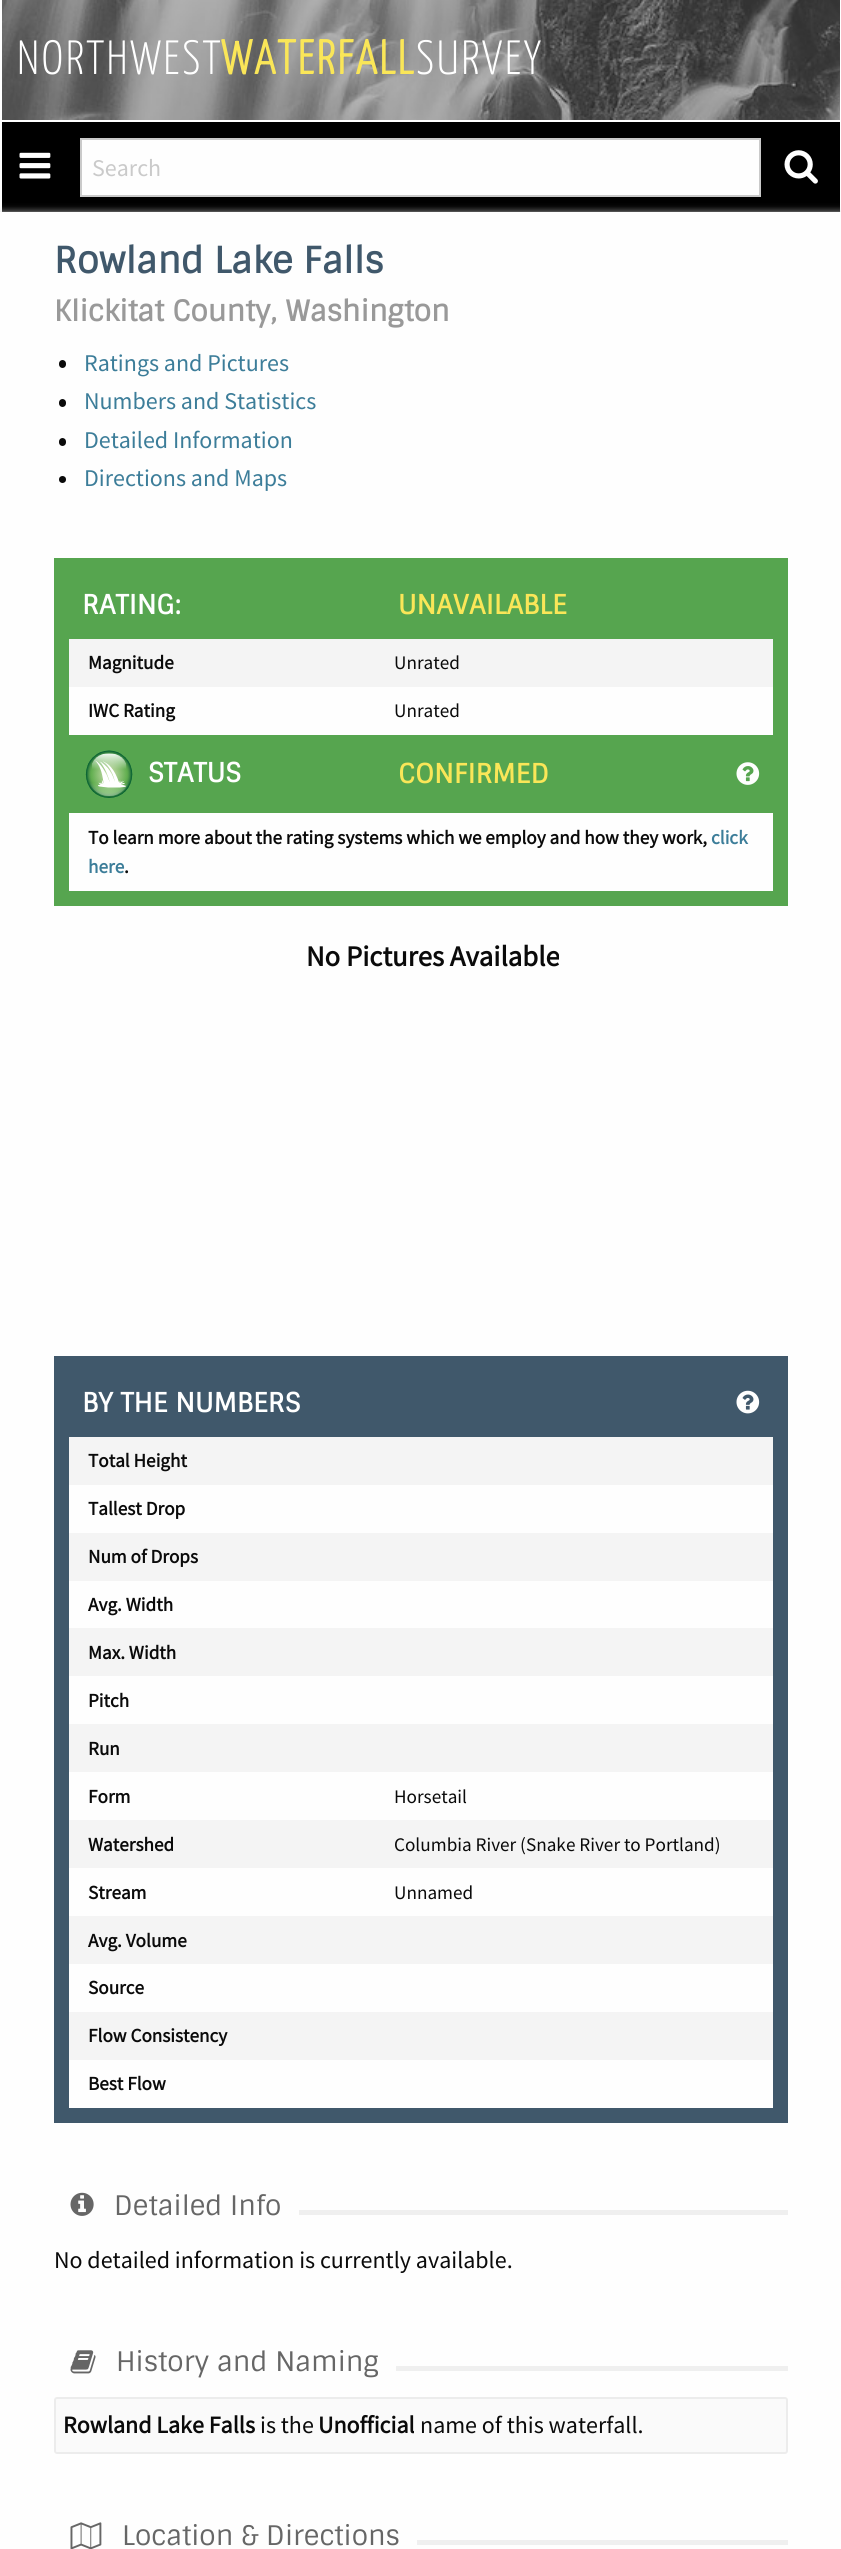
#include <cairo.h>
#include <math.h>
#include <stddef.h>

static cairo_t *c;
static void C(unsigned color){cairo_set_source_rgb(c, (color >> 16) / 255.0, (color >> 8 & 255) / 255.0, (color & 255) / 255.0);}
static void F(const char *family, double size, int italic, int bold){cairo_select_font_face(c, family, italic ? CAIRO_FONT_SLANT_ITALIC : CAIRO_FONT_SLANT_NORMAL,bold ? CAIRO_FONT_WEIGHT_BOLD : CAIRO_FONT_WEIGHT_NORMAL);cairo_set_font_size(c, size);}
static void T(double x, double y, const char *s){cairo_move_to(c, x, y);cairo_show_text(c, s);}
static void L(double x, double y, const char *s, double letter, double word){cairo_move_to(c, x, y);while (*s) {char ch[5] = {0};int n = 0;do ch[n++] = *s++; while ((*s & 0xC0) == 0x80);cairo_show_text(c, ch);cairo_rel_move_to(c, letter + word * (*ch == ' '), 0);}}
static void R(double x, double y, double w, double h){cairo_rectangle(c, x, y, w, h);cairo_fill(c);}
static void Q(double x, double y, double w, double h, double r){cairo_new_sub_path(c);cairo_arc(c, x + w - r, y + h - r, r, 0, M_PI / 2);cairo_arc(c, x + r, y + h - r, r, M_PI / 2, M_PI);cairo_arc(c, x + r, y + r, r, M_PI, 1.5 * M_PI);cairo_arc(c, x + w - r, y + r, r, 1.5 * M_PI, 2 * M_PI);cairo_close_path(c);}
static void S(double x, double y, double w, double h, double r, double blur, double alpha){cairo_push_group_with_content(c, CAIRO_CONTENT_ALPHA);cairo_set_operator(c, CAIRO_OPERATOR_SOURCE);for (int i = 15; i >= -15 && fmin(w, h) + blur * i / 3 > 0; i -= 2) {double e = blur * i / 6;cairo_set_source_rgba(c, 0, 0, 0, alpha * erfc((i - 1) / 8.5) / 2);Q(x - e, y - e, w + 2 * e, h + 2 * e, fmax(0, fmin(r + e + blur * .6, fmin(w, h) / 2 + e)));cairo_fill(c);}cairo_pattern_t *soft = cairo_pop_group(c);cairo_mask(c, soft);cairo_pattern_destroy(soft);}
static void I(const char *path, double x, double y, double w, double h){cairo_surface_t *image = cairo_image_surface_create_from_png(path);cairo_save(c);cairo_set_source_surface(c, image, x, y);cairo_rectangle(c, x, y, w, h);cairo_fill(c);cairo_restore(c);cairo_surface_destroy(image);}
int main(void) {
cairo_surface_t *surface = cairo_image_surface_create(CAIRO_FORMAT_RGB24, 841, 2549);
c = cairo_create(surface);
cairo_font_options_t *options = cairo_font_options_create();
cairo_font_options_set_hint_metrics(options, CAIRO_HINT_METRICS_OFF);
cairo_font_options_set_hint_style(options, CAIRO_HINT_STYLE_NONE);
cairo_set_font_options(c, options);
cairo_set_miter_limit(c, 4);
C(0xffffff);
cairo_paint(c);
I("1.png",2,0,838,120);
F("Yanone Kaffeesatz ExtraLight",48,0,0);
C(0xffffff);
L(17,74,"NORTHWEST",2.5,0);
F("Yanone Kaffeesatz",48,0,1);
C(0xfae658);
L(221,74,"WATERFALL",2.5,0);
F("Yanone Kaffeesatz ExtraLight",48,0,0);
C(0xffffff);
L(416,74,"SURVEY",2.5,0);
C(0x000000);
R(2,122,838,90);
I("2.png",19,152,32,27);
C(0xfefefe);
cairo_rectangle(c,81,139,679,57);
cairo_fill_preserve(c);
C(0xcacaca);
cairo_stroke(c);
F("Source Sans Pro",24,0,0);
T(92,176,"Search");
I("3.png",784,150,34,34);
C(0xdddddd);
S(-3,213,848,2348,0,4,1);
C(0xfefefe);
R(0,212,841,2337);
F("Sintony",36,0,1);
C(0x40586b);
T(54,273,"Rowland Lake Falls");
F("Sintony",28.5,0,1);
C(0x999999);
T(54,321,"Klickitat County, Washington");
C(0x0a0a0a);
Q(59,360,7,8,3.5);
cairo_fill(c);
F("Source Sans Pro",24,0,0);
C(0x3c7d99);
T(84,371,"Ratings and Pictures");
C(0x0a0a0a);
Q(59,399,7,8,3.5);
cairo_fill(c);
C(0x3c7d99);
T(84,409,"Numbers and Statistics");
C(0x0a0a0a);
Q(59,438,7,8,3.5);
cairo_fill(c);
C(0x3c7d99);
T(84,448,"Detailed Information");
C(0x0a0a0a);
cairo_new_path(c);
cairo_arc(c,62.5,479.5,3.5,0,2 * M_PI);
cairo_fill(c);
C(0x3c7d99);
T(84,486,"Directions and Maps");
C(0x56a54f);
R(773,558,15,333);
R(69,891,719,15);
R(54,558,15,348);
R(69,558,704,81);
F("Sintony",26.5,0,1);
C(0xffffff);
T(82,614,"RATING:");
C(0xfae658);
T(398,614,"UNAVAILABLE");
C(0xf4f4f4);
R(69,639,704,48);
F("Source Sans Pro",19.2,0,1);
C(0x0a0a0a);
T(88,669,"Magnitude");
F("Source Sans Pro",19.2,0,0);
T(394,669,"Unrated");
F("Source Sans Pro",19.2,0,1);
T(88,717,"IWC Rating");
F("Source Sans Pro",19.2,0,0);
T(394,717,"Unrated");
C(0x56a54f);
R(69,735,704,78);
I("4.png",85,750,48,48);
F("Sintony",26.5,0,1);
C(0xffffff);
T(148,782,"STATUS");
C(0xfae658);
T(398,783,"CONFIRMED");
I("5.png",736,762,24,23);
F("Source Sans Pro",19.2,0,1);
C(0x0a0a0a);
T(88,844,"To learn more about the rating systems which we employ and how they work,");
C(0x3c7d99);
T(711,844,"click");
T(88,873,"here");
C(0x0a0a0a);
T(124,873,".");
F("Source Sans Pro",28.75,0,1);
T(306,966,"No Pictures Available");
C(0x40586b);
R(773,1356,15,752);
R(69,2108,719,15);
R(54,1356,15,767);
R(69,1356,704,81);
F("Sintony",26.5,0,1);
C(0xffffff);
T(82,1412,"BY THE NUMBERS");
I("6.png",736,1390,24,24);
C(0xf4f4f4);
R(69,1437,704,48);
F("Source Sans Pro",19.2,0,1);
C(0x0a0a0a);
T(88,1467,"Total Height");
T(88,1515,"Tallest Drop");
C(0xf4f4f4);
R(69,1533,704,48);
C(0x0a0a0a);
T(88,1563,"Num of Drops");
T(88,1611,"Avg. Width");
C(0xf4f4f4);
R(69,1628,704,48);
C(0x0a0a0a);
T(88,1659,"Max. Width");
T(88,1707,"Pitch");
C(0xf4f4f4);
R(69,1724,704,48);
C(0x0a0a0a);
T(88,1755,"Run");
T(88,1803,"Form");
F("Source Sans Pro",19.2,0,0);
T(394,1803,"Horsetail");
C(0xf4f4f4);
R(69,1820,704,48);
F("Source Sans Pro",19.2,0,1);
C(0x0a0a0a);
T(88,1851,"Watershed");
F("Source Sans Pro",19.2,0,0);
T(394,1851,"Columbia River (Snake River to Portland)");
F("Source Sans Pro",19.2,0,1);
T(88,1899,"Stream");
F("Source Sans Pro",19.2,0,0);
T(394,1899,"Unnamed");
C(0xf4f4f4);
R(69,1916,704,48);
F("Source Sans Pro",19.2,0,1);
C(0x0a0a0a);
T(88,1947,"Avg. Volume");
T(88,1994,"Source");
C(0xf4f4f4);
R(69,2012,704,48);
C(0x0a0a0a);
T(88,2042,"Flow Consistency");
T(88,2090,"Best Flow");
C(0xefefef);
R(299,2210,489,5);
I("7.png",70,2192,24,24);
F("Sintony",27,0,0);
C(0x666666);
T(114,2215,"Detailed Info");
F("Source Sans Pro",24,0,0);
C(0x0a0a0a);
T(54,2268,"No detailed information is currently available.");
C(0xefefef);
R(396,2366,392,5);
I("8.png",70,2350,26,24);
F("Sintony",27,0,0);
C(0x666666);
T(116,2371,"History and Naming");
C(0xfafafa);
Q(55,2398,732,55,2);
cairo_fill_preserve(c);
C(0xececec);
cairo_stroke(c);
F("Source Sans Pro",24,0,1);
C(0x0a0a0a);
T(63,2433,"Rowland Lake Falls");
F("Source Sans Pro",24,0,0);
T(260,2433,"is the");
F("Source Sans Pro",24,0,1);
T(318,2433,"Unofficial");
F("Source Sans Pro",24,0,0);
T(420,2433,"name of this waterfall.");
C(0xefefef);
R(417,2540,371,5);
I("9.png",70,2522,32,27);
F("Sintony",27,0,0);
C(0x666666);
T(122,2545,"Location & Directions");
cairo_surface_write_to_png(surface, "o.png");
cairo_font_options_destroy(options);
cairo_destroy(c);
cairo_surface_destroy(surface);
return 0;
}
